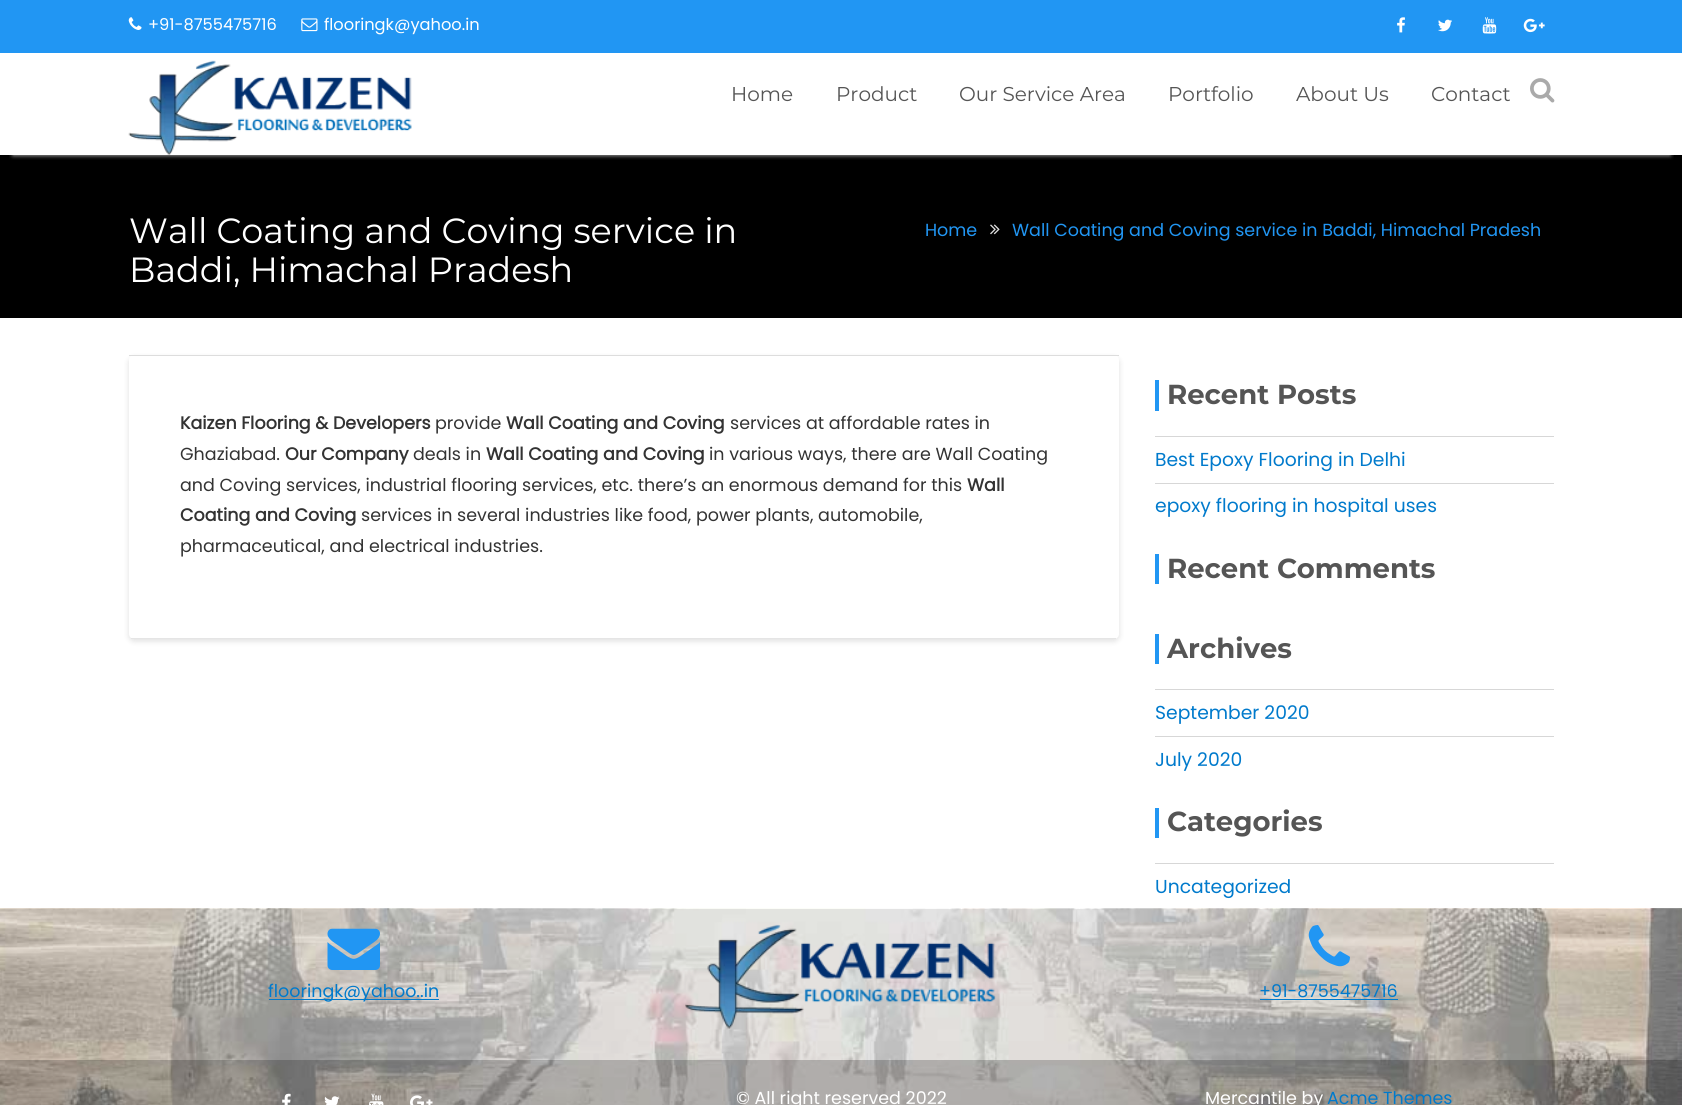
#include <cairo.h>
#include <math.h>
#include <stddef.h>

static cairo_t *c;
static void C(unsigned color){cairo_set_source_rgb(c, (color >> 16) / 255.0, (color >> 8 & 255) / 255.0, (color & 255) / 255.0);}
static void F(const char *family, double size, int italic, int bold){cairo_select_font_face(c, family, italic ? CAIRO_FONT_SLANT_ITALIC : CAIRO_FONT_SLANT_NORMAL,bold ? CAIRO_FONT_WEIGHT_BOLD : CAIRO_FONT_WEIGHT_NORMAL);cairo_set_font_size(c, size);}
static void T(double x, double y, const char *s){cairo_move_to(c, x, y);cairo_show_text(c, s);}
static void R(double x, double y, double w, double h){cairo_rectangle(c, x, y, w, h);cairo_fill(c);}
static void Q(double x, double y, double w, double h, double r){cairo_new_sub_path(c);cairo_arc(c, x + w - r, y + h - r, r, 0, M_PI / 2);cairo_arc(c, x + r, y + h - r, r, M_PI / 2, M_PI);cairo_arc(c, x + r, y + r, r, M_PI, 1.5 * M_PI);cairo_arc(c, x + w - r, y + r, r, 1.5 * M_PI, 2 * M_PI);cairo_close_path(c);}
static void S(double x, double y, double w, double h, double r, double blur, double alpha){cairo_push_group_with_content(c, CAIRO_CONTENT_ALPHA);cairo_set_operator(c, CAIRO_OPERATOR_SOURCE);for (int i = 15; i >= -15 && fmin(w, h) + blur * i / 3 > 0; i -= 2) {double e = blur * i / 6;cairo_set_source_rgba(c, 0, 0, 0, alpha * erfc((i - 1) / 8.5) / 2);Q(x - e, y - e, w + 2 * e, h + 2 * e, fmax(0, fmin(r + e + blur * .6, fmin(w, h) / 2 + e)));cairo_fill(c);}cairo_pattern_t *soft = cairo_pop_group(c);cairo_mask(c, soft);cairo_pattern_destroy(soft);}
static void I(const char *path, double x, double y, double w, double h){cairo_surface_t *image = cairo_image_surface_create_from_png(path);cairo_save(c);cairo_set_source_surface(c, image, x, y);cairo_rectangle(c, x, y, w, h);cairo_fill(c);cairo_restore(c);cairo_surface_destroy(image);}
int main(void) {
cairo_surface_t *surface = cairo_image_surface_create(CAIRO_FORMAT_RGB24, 1682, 1105);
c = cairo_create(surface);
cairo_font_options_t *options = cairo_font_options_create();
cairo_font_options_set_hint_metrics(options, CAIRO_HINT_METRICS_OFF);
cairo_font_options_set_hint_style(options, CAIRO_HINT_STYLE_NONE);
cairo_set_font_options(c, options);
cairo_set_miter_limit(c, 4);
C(0xffffff);
cairo_paint(c);
C(0x2196f3);
R(0,0,1682,53);
I("1.png",128,17,14,13);
F("Poppins",16.25,0,0);
C(0xffffff);
T(148,30,"+91-8755475716");
I("2.png",301,18,17,14);
T(324,30,"flooringk@yahoo.in");
I("3.png",1397,17,8,16);
I("4.png",1438,19,14,13);
I("5.png",1482,17,15,17);
I("6.png",1523,18,22,15);
C(0x000000);
R(0,155,1682,163);
cairo_save(c);
cairo_rectangle(c,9,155,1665,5);
cairo_clip(c);
C(0xeeeeee);
S(13,78,1657,77,0,2.5,.9);
cairo_restore(c);
I("7.png",128,60,284,95);
F("Montserrat",20,0,0);
C(0x555555);
T(731,101,"Home");
T(836,101,"Product");
T(959,101,"Our Service Area");
T(1168,101,"Portfolio");
T(1296,101,"About Us");
T(1431,101,"Contact");
I("8.png",1530,78,25,25);
F("Montserrat",35,0,0);
C(0xffffff);
T(129,243,"Wall Coating and Coving service in");
T(129,282,"Baddi, Himachal Pradesh");
F("Poppins",17.5,0,0);
C(0x2196f3);
T(925,236,"Home");
I("9.png",990,224,10,11);
T(1012,236,"Wall Coating and Coving service in Baddi, Himachal Pradesh");
C(0x000000);
S(129,358,990,283,5,3,.13);
C(0xffffff);
Q(129,355,990,284,5);
cairo_fill(c);
C(0xe5e5e5);
R(131,638,985,1);
C(0xdddddd);
R(129,355,990,1);
F("Poppins",17.5,0,1);
C(0x333333);
T(180,429,"Kaizen Flooring & Developers");
F("Poppins",17.5,0,0);
T(435,429,"provide");
F("Poppins",17.5,0,1);
T(506,429,"Wall Coating and Coving");
F("Poppins",17.5,0,0);
T(730,429,"services at affordable rates in");
T(180,460,"Ghaziabad.");
F("Poppins",17.5,0,1);
T(285,460,"Our Company");
F("Poppins",17.5,0,0);
T(413,460,"deals in");
F("Poppins",17.5,0,1);
T(486,460,"Wall Coating and Coving");
F("Poppins",17.5,0,0);
T(709,460,"in various ways, there are Wall Coating");
T(180,491,"and Coving services, industrial flooring services, etc. there’s an enormous demand for this");
F("Poppins",17.5,0,1);
T(967,491,"Wall");
T(180,521,"Coating and Coving");
F("Poppins",17.5,0,0);
T(361,521,"services in several industries like food, power plants, automobile,");
T(180,552,"pharmaceutical, and electrical industries.");
C(0x2196f3);
R(1155,380,4,31);
F("Montserrat",27.5,0,1);
C(0x555555);
T(1167,404,"Recent Posts");
C(0xd7d7d7);
R(1155,436,399,1);
F("Poppins",18.75,0,0);
C(0x007acc);
T(1155,466,"Best Epoxy Flooring in Delhi");
C(0xd7d7d7);
R(1155,483,399,1);
C(0x007acc);
T(1155,512,"epoxy flooring in hospital uses");
C(0x2196f3);
R(1155,554,4,30);
F("Montserrat",27.5,0,1);
C(0x555555);
T(1167,578,"Recent Comments");
C(0x2196f3);
R(1155,634,4,30);
C(0x555555);
T(1167,658,"Archives");
C(0xd7d7d7);
R(1155,689,399,1);
F("Poppins",18.75,0,0);
C(0x007acc);
T(1155,719,"September 2020");
C(0xd7d7d7);
R(1155,736,399,1);
C(0x007acc);
T(1155,766,"July 2020");
C(0x2196f3);
R(1155,808,4,30);
F("Montserrat",27.5,0,1);
C(0x555555);
T(1167,831,"Categories");
C(0xd7d7d7);
R(1155,863,399,1);
F("Poppins",18.75,0,0);
C(0x007acc);
T(1155,893,"Uncategorized");
I("10.png",0,908,1682,197);
cairo_set_source_rgba(c,0,0,0,0.1);
R(0,909,1682,151);
I("11.png",327,928,53,42);
C(0x007acc);
R(269,999,170,1);
F("Poppins",17.5,0,0);
T(268,997,"flooringk@yahoo..in");
I("12.png",685,924,311,105);
I("13.png",1308,925,42,42);
T(1259,997,"+91-8755475716");
R(1260,999,138,1);
cairo_set_source_rgba(c,0,0,0,0.3);
R(0,1060,1682,45);
I("14.png",282,1093,9,12);
I("15.png",324,1096,16,9);
I("16.png",369,1093,15,12);
I("17.png",410,1095,23,10);
C(0xffffff);
T(736,1104,"© All right reserved 2022");
T(1205,1104,"Mercantile by");
C(0x007acc);
T(1327,1104,"Acme Themes");
cairo_surface_write_to_png(surface, "o.png");
cairo_font_options_destroy(options);
cairo_destroy(c);
cairo_surface_destroy(surface);
return 0;
}
